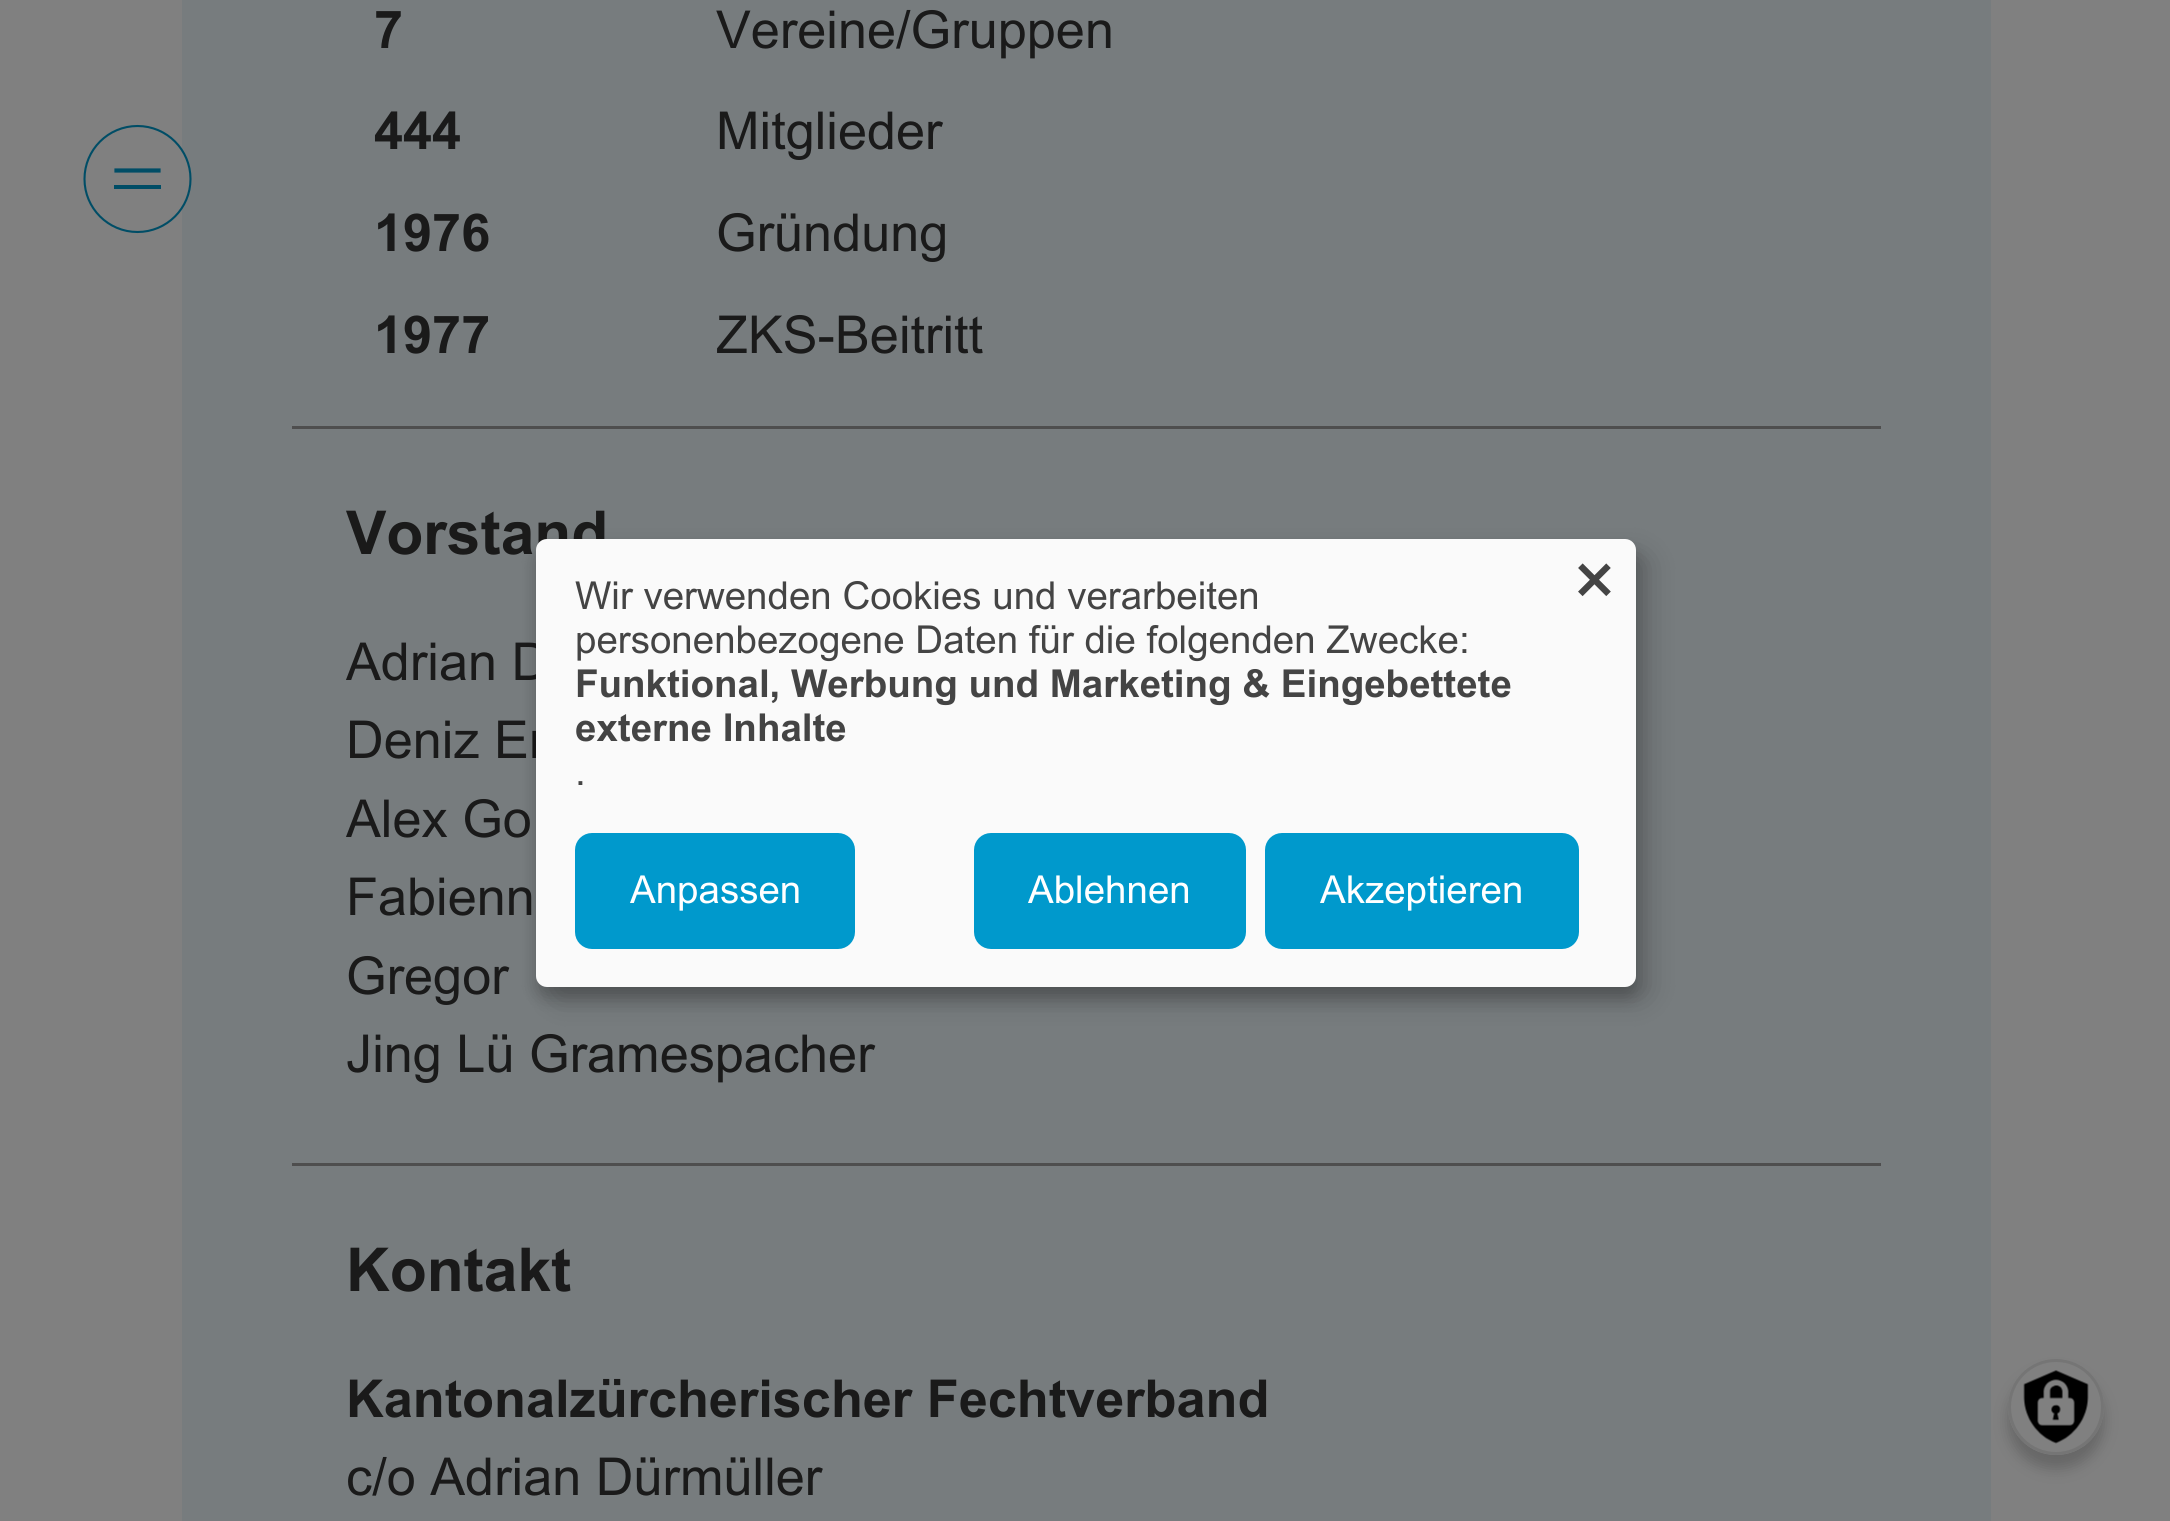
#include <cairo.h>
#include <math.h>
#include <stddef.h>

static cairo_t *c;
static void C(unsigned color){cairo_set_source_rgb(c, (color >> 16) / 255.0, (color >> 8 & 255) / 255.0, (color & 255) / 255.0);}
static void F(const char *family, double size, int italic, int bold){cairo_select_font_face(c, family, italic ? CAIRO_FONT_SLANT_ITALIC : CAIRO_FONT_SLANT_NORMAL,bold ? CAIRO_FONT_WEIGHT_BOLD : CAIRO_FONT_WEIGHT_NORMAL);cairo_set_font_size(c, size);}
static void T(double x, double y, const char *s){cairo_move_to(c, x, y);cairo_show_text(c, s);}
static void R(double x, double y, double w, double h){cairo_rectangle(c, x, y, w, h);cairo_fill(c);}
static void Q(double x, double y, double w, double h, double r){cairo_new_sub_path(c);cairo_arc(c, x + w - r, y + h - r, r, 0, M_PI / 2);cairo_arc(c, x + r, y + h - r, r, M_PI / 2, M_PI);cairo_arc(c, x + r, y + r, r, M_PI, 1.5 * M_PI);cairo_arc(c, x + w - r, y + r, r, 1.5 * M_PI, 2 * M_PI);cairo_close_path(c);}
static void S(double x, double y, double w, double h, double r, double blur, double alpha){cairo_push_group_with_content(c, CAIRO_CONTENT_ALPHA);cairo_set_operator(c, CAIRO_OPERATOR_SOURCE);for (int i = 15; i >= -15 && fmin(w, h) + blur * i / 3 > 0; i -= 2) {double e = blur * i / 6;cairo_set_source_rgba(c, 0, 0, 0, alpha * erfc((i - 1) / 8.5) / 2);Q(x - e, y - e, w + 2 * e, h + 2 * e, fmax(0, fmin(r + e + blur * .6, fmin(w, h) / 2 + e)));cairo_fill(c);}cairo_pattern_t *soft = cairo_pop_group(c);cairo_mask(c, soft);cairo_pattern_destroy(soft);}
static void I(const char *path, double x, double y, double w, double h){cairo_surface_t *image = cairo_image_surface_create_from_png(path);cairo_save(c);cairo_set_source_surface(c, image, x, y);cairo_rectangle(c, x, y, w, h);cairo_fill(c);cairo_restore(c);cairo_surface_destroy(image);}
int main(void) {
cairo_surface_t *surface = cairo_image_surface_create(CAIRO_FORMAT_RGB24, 2170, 1521);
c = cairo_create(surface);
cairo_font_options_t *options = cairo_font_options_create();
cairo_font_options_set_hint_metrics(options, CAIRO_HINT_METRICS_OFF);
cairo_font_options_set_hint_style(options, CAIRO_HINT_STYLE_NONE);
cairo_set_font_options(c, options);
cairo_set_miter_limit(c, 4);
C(0x808080);
cairo_paint(c);
C(0x777c7e);
R(182,0,1809,1521);
C(0x808080);
cairo_arc(c,137.5,179,53,0,2 * M_PI);
cairo_fill_preserve(c);
C(0x004d66);
cairo_set_line_width(c,2.1);
cairo_stroke(c);
cairo_new_path(c);
cairo_move_to(c,116.5,170.5);
cairo_line_to(c,158.5,170.5);
cairo_set_line_width(c,4.2);
cairo_set_line_cap(c,CAIRO_LINE_CAP_SQUARE);
cairo_stroke(c);
R(114,185,47,4);
C(0x4e4e4e);
R(292,426,1589,3);
F("Arial",52.25,0,1);
C(0x1a1a1a);
T(374,48,"7");
F("Arial",52.25,0,0);
T(716,48,"Vereine/Gruppen");
F("Arial",52.25,0,1);
T(374,149,"444");
F("Arial",52.25,0,0);
T(716,149,"Mitglieder");
F("Arial",52.25,0,1);
T(374,251,"1976");
F("Arial",52.25,0,0);
T(716,251,"Gründung");
F("Arial",52.25,0,1);
T(374,353,"1977");
F("Arial",52.25,0,0);
T(716,353,"ZKS-Beitritt");
C(0x4e4e4e);
R(292,1163,1589,3);
F("Arial",60.5,0,1);
C(0x1a1a1a);
T(346,554,"Vorstand");
F("Arial",52.25,0,0);
T(346,680,"Adrian D");
T(346,758,"Deniz Er");
T(346,837,"Alex Go");
T(346,915,"Fabienn");
T(346,994,"Gregor");
T(346,1072,"Jing Lü Gramespacher");
F("Arial",60.5,0,1);
T(346,1291,"Kontakt");
F("Arial",52.25,0,1);
T(346,1417,"Kantonalzürcherischer Fechtverband");
F("Arial",52.25,0,0);
T(346,1495,"c/o Adrian Dürmüller");
C(0x000000);
S(550,553,1100,448,11,14,.19);
S(536,550,1100,448,11,8,.2);
C(0xfafafa);
Q(536,539,1100,448,11);
cairo_fill(c);
F("Arial",38.5,0,0);
C(0x444444);
T(575,609,"Wir verwenden Cookies und verarbeiten");
T(575,653,"personenbezogene Daten für die folgenden Zwecke:");
F("Arial",38.5,0,1);
T(575,697,"Funktional, Werbung und Marketing & Eingebettete");
T(575,741,"externe Inhalte");
F("Arial",38.5,0,0);
T(575,785,".");
C(0x0099cc);
Q(579,837,272,108,13);
cairo_fill_preserve(c);
cairo_set_line_width(c,8);
cairo_set_line_cap(c,CAIRO_LINE_CAP_BUTT);
cairo_stroke(c);
C(0xffffff);
T(630,903,"Anpassen");
C(0x0099cc);
Q(978,837,264,108,13);
cairo_fill_preserve(c);
cairo_stroke(c);
C(0xffffff);
T(1028,903,"Ablehnen");
C(0x0099cc);
Q(1269,837,306,108,13);
cairo_fill_preserve(c);
cairo_stroke(c);
C(0xffffff);
T(1320,903,"Akzeptieren");
F("Arial",77,0,0);
C(0x444444);
T(1572,607,"×");
C(0x000000);
S(2008,1372,96,97,48,7,.2);
C(0x808080);
cairo_arc(c,2056,1407,48,0,2 * M_PI);
cairo_fill(c);
I("1.png",2023,1370,66,74);
cairo_arc(c,2056,1407,46.5,0,2 * M_PI);
C(0x757575);
cairo_set_line_width(c,3);
cairo_stroke(c);
cairo_surface_write_to_png(surface, "o.png");
cairo_font_options_destroy(options);
cairo_destroy(c);
cairo_surface_destroy(surface);
return 0;
}
